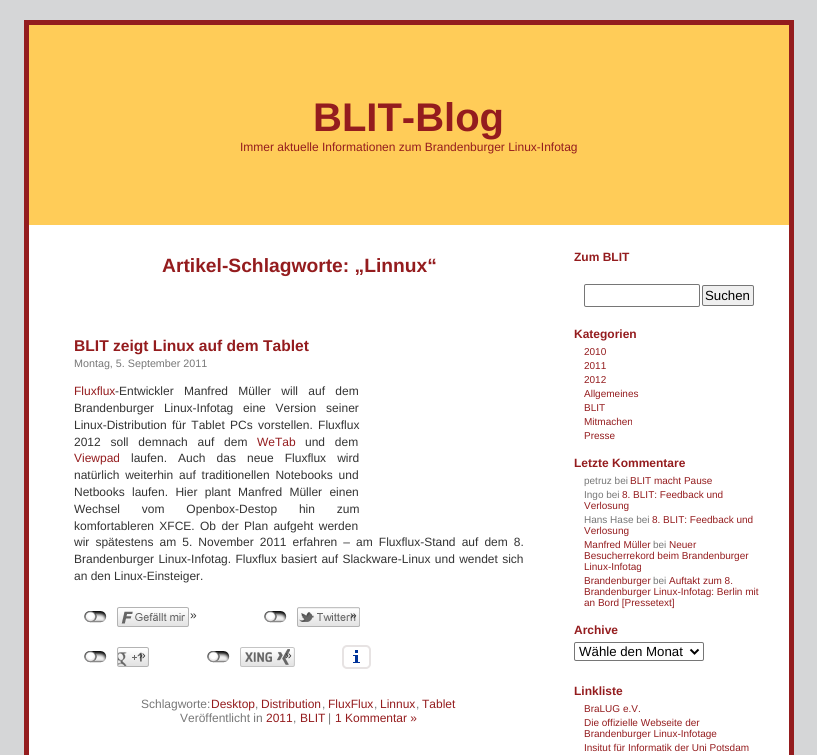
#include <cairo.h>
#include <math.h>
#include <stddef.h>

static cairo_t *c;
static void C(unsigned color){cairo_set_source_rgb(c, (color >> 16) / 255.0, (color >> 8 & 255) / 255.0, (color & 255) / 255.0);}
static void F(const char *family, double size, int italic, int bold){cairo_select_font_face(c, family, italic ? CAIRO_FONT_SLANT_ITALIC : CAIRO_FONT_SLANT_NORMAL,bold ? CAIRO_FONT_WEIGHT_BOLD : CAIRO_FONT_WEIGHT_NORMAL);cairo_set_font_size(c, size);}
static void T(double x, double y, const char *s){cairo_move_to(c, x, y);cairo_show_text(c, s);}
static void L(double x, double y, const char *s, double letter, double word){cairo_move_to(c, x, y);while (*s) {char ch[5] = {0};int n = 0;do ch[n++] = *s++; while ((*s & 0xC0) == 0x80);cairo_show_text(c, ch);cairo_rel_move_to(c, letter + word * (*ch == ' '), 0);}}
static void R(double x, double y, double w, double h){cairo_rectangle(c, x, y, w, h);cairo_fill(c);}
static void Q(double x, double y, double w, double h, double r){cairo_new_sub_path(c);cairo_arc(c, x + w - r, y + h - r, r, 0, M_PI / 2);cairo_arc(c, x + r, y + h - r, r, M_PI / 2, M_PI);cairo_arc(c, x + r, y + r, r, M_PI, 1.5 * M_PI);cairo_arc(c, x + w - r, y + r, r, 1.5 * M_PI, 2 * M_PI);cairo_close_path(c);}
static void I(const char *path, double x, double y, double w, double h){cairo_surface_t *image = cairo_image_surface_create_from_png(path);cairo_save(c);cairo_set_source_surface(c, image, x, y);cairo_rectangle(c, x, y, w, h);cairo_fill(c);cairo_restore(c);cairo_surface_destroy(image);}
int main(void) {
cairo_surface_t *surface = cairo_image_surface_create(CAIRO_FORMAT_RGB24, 817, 755);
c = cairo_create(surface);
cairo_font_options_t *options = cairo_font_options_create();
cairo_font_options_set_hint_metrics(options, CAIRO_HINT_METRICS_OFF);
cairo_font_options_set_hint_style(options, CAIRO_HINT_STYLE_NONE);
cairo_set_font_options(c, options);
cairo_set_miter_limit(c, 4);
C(0xd5d6d7);
cairo_paint(c);
C(0xffffff);
R(29,225,760,530);
cairo_rectangle(c,26.5,22.5,765,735);
C(0x941c1e);
cairo_set_line_width(c,5);
cairo_stroke(c);
C(0xffcc58);
R(29,25,760,200);
F("Liberation Sans",40,0,1);
C(0x941c1e);
T(313,131,"BLIT-Blog");
F("Liberation Sans",12,0,0);
T(240,151,"Immer aktuelle Informationen zum Brandenburger Linux-Infotag");
F("Liberation Sans",19.25,0,1);
T(162,272,"Artikel-Schlagworte: „Linnux“");
F("Liberation Sans",15.6,0,1);
T(74,351,"BLIT zeigt Linux auf dem Tablet");
F("Liberation Sans",10.75,0,0);
C(0x777777);
T(74,367,"Montag, 5. September 2011");
F("Liberation Sans",12,0,0);
C(0x941c1e);
T(74,395,"Fluxflux");
C(0x333333);
L(115,395,"-Entwickler Manfred Müller will auf dem",0,7);
L(74,412,"Brandenburger Linux-Infotag eine Version seiner",0,6.5);
L(74,429,"Linux-Distribution für Tablet PCs vorstellen. Fluxflux",0,2);
L(74,446,"2012 soll demnach auf dem",0,6.5);
C(0x941c1e);
T(257,446,"WeTab");
C(0x333333);
L(305,446,"und dem",0,6.5);
C(0x941c1e);
T(74,462,"Viewpad");
C(0x333333);
L(131,462,"laufen. Auch das neue Fluxflux wird",0,7.75);
L(74,479,"natürlich weiterhin auf traditionellen Notebooks und",0,2.5);
L(74,496,"Netbooks laufen. Hier plant Manfred Müller einen",0,4);
L(74,513,"Wechsel vom Openbox-Destop hin zum",0,18.5);
L(74,530,"komfortableren XFCE. Ob der Plan aufgeht werden",0,2);
L(74,546,"wir spätestens am 5. November 2011 erfahren – am Fluxflux-Stand auf dem 8.",0,2.75);
L(74,563,"Brandenburger Linux-Infotag. Fluxflux basiert auf Slackware-Linux und wendet sich",0,1);
T(74,580,"an den Linux-Einsteiger.");
I("1.png",84,611,23,12);
I("2.png",117,607,72,20);
T(190,619,"»");
I("1.png",264,611,23,12);
I("3.png",297,607,63,20);
T(350,619,"»");
I("1.png",84,651,23,12);
I("4.png",117,647,32,20);
T(139,659,"»");
I("1.png",207,651,23,12);
I("5.png",240,647,55,20);
T(285,659,"»");
I("6.png",353,650,7,13);
Q(343,646,27,22,4);
C(0xe7e3e3);
cairo_set_line_width(c,2);
cairo_stroke(c);
C(0x777777);
T(141,708,"Schlagworte:");
C(0x941c1e);
T(211,708,"Desktop");
C(0x777777);
T(255,708,",");
C(0x941c1e);
T(261,708,"Distribution");
C(0x777777);
T(322,708,",");
C(0x941c1e);
T(328,708,"FluxFlux");
C(0x777777);
T(374,708,",");
C(0x941c1e);
T(380,708,"Linnux");
C(0x777777);
T(416,708,",");
C(0x941c1e);
T(422,708,"Tablet");
C(0x777777);
T(180,722,"Veröffentlicht in");
C(0x941c1e);
T(266,722,"2011");
C(0x777777);
T(293,722,",");
C(0x941c1e);
T(300,722,"BLIT");
C(0x777777);
T(328,722,"|");
C(0x941c1e);
T(335,722,"1 Kommentar »");
F("Liberation Sans",12,0,1);
T(574,261,"Zum BLIT");
Q(584.5,284.5,115,22,1.5);
C(0x767676);
cairo_set_line_width(c,1);
cairo_stroke(c);
C(0xefefef);
Q(702.5,285.5,51,20,1.5);
cairo_fill_preserve(c);
C(0x767676);
cairo_stroke(c);
F("Liberation Sans",13.25,0,0);
C(0x000000);
T(705,300,"Suchen");
F("Liberation Sans",12,0,1);
C(0x941c1e);
T(574,338,"Kategorien");
F("Liberation Sans",10,0,0);
T(584,355,"2010");
T(584,369,"2011");
T(584,383,"2012");
T(584,397,"Allgemeines");
T(584,411,"BLIT");
T(584,425,"Mitmachen");
T(584,439,"Presse");
F("Liberation Sans",12,0,1);
T(574,467,"Letzte Kommentare");
F("Liberation Sans",10,0,0);
C(0x777777);
T(584,484,"petruz bei");
C(0x941c1e);
T(630,484,"BLIT macht Pause");
C(0x777777);
T(584,498,"Ingo bei");
C(0x941c1e);
T(622,498,"8. BLIT: Feedback und");
T(584,509,"Verlosung");
C(0x777777);
T(584,523,"Hans Hase bei");
C(0x941c1e);
T(652,523,"8. BLIT: Feedback und");
T(584,534,"Verlosung");
T(584,548,"Manfred Müller");
C(0x777777);
T(653,548,"bei");
C(0x941c1e);
T(669,548,"Neuer");
T(584,559,"Besucherrekord beim Brandenburger");
T(584,570,"Linux-Infotag");
T(584,584,"Brandenburger");
C(0x777777);
T(653,584,"bei");
C(0x941c1e);
T(669,584,"Auftakt zum 8.");
T(584,595,"Brandenburger Linux-Infotag: Berlin mit");
T(584,606,"an Bord [Pressetext]");
F("Liberation Sans",12,0,1);
T(574,634,"Archive");
Q(574.5,642.5,129,18,1.5);
C(0x767676);
cairo_stroke(c);
cairo_new_path(c);
cairo_move_to(c,690.5,649.5);
cairo_line_to(c,694.5,653.5);
cairo_line_to(c,698.5,649.5);
C(0x000000);
cairo_set_line_width(c,2);
cairo_stroke(c);
F("Liberation Sans",13.25,0,0);
T(579,656,"Wähle den Monat");
F("Liberation Sans",12,0,1);
C(0x941c1e);
T(574,695,"Linkliste");
F("Liberation Sans",10,0,0);
T(584,712,"BraLUG e.V.");
T(584,726,"Die offizielle Webseite der");
T(584,737,"Brandenburger Linux-Infotage");
T(584,751,"Insitut für Informatik der Uni Potsdam");
cairo_surface_write_to_png(surface, "o.png");
cairo_font_options_destroy(options);
cairo_destroy(c);
cairo_surface_destroy(surface);
return 0;
}
